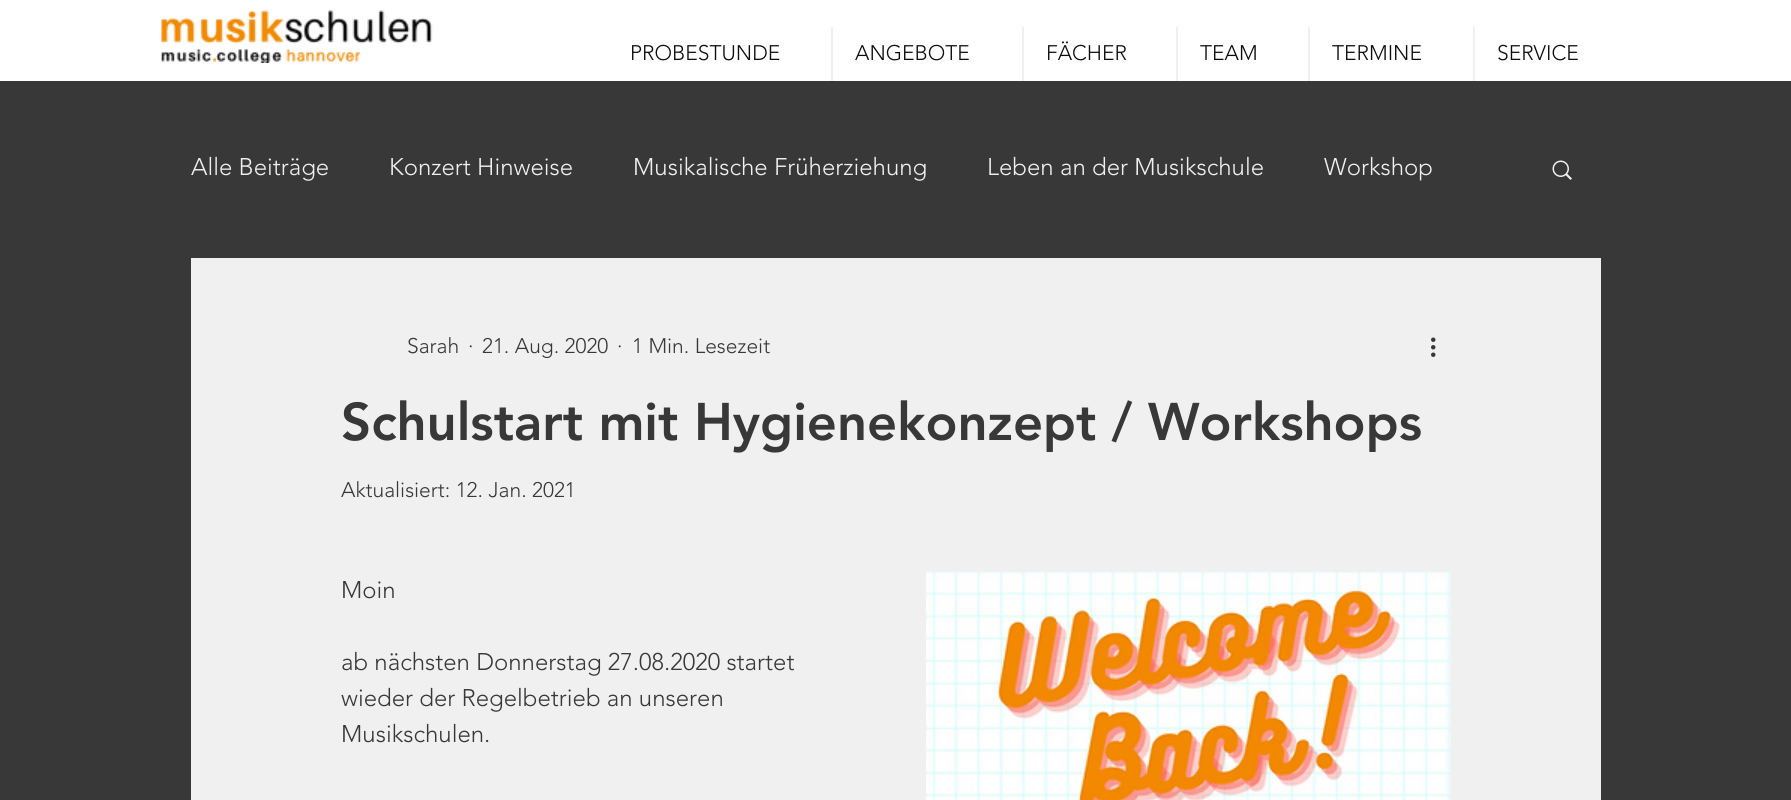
#include <cairo.h>
#include <math.h>
#include <stddef.h>

static cairo_t *c;
static void C(unsigned color){cairo_set_source_rgb(c, (color >> 16) / 255.0, (color >> 8 & 255) / 255.0, (color & 255) / 255.0);}
static void F(const char *family, double size, int italic, int bold){cairo_select_font_face(c, family, italic ? CAIRO_FONT_SLANT_ITALIC : CAIRO_FONT_SLANT_NORMAL,bold ? CAIRO_FONT_WEIGHT_BOLD : CAIRO_FONT_WEIGHT_NORMAL);cairo_set_font_size(c, size);}
static void T(double x, double y, const char *s){cairo_move_to(c, x, y);cairo_show_text(c, s);}
static void R(double x, double y, double w, double h){cairo_rectangle(c, x, y, w, h);cairo_fill(c);}
static void I(const char *path, double x, double y, double w, double h){cairo_surface_t *image = cairo_image_surface_create_from_png(path);cairo_save(c);cairo_set_source_surface(c, image, x, y);cairo_rectangle(c, x, y, w, h);cairo_fill(c);cairo_restore(c);cairo_surface_destroy(image);}
int main(void) {
cairo_surface_t *surface = cairo_image_surface_create(CAIRO_FORMAT_RGB24, 1791, 800);
c = cairo_create(surface);
cairo_font_options_t *options = cairo_font_options_create();
cairo_font_options_set_hint_metrics(options, CAIRO_HINT_METRICS_OFF);
cairo_font_options_set_hint_style(options, CAIRO_HINT_STYLE_NONE);
cairo_set_font_options(c, options);
cairo_set_miter_limit(c, 4);
C(0x383838);
cairo_paint(c);
C(0xffffff);
R(0,0,1791,81);
I("1.png",161,10,272,53);
F("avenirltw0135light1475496 Light",21,0,0);
C(0x0d0c0c);
T(630,60,"PROBESTUNDE");
C(0xf0f0f0);
R(831,27,2,54);
C(0x0d0c0c);
T(855,60,"ANGEBOTE");
C(0xf0f0f0);
R(1022,27,2,54);
C(0x0d0c0c);
T(1046,60,"FÄCHER");
C(0xf0f0f0);
R(1176,27,2,54);
C(0x0d0c0c);
T(1200,60,"TEAM");
C(0xf0f0f0);
R(1308,27,2,54);
C(0x0d0c0c);
T(1332,60,"TERMINE");
C(0xf0f0f0);
R(1473,27,2,54);
C(0x0d0c0c);
T(1497,60,"SERVICE");
F("avenirltw0135light1475496 Light",24,0,0);
C(0xf0f0f0);
T(191,175,"Alle Beiträge");
T(389,175,"Konzert Hinweise");
T(633,175,"Musikalische Früherziehung");
T(987,175,"Leben an der Musikschule");
T(1324,175,"Workshop");
I("2.png",1552,160,20,20);
R(191,258,1410,542);
F("avenirltw0135light1475496 Light",21,0,0);
C(0x383838);
T(407,353,"Sarah");
T(468,353,"·");
T(482,353,"21. Aug. 2020");
T(617,353,"·");
T(632,353,"1 Min. Lesezeit");
I("3.png",1431,337,5,20);
F("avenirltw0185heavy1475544 Black",52.5,0,0);
T(341,440,"Schulstart mit Hygienekonzept / Workshops");
F("avenirltw0135light1475496 Light",21,0,0);
T(341,497,"Aktualisiert: 12. Jan. 2021");
F("avenirltw0135light1475496 Light",24,0,0);
T(341,598,"Moin");
I("4.png",926,571,525,229);
T(341,670,"ab nächsten Donnerstag 27.08.2020 startet");
T(341,706,"wieder der Regelbetrieb an unseren");
T(341,742,"Musikschulen.");
cairo_surface_write_to_png(surface, "o.png");
cairo_font_options_destroy(options);
cairo_destroy(c);
cairo_surface_destroy(surface);
return 0;
}
